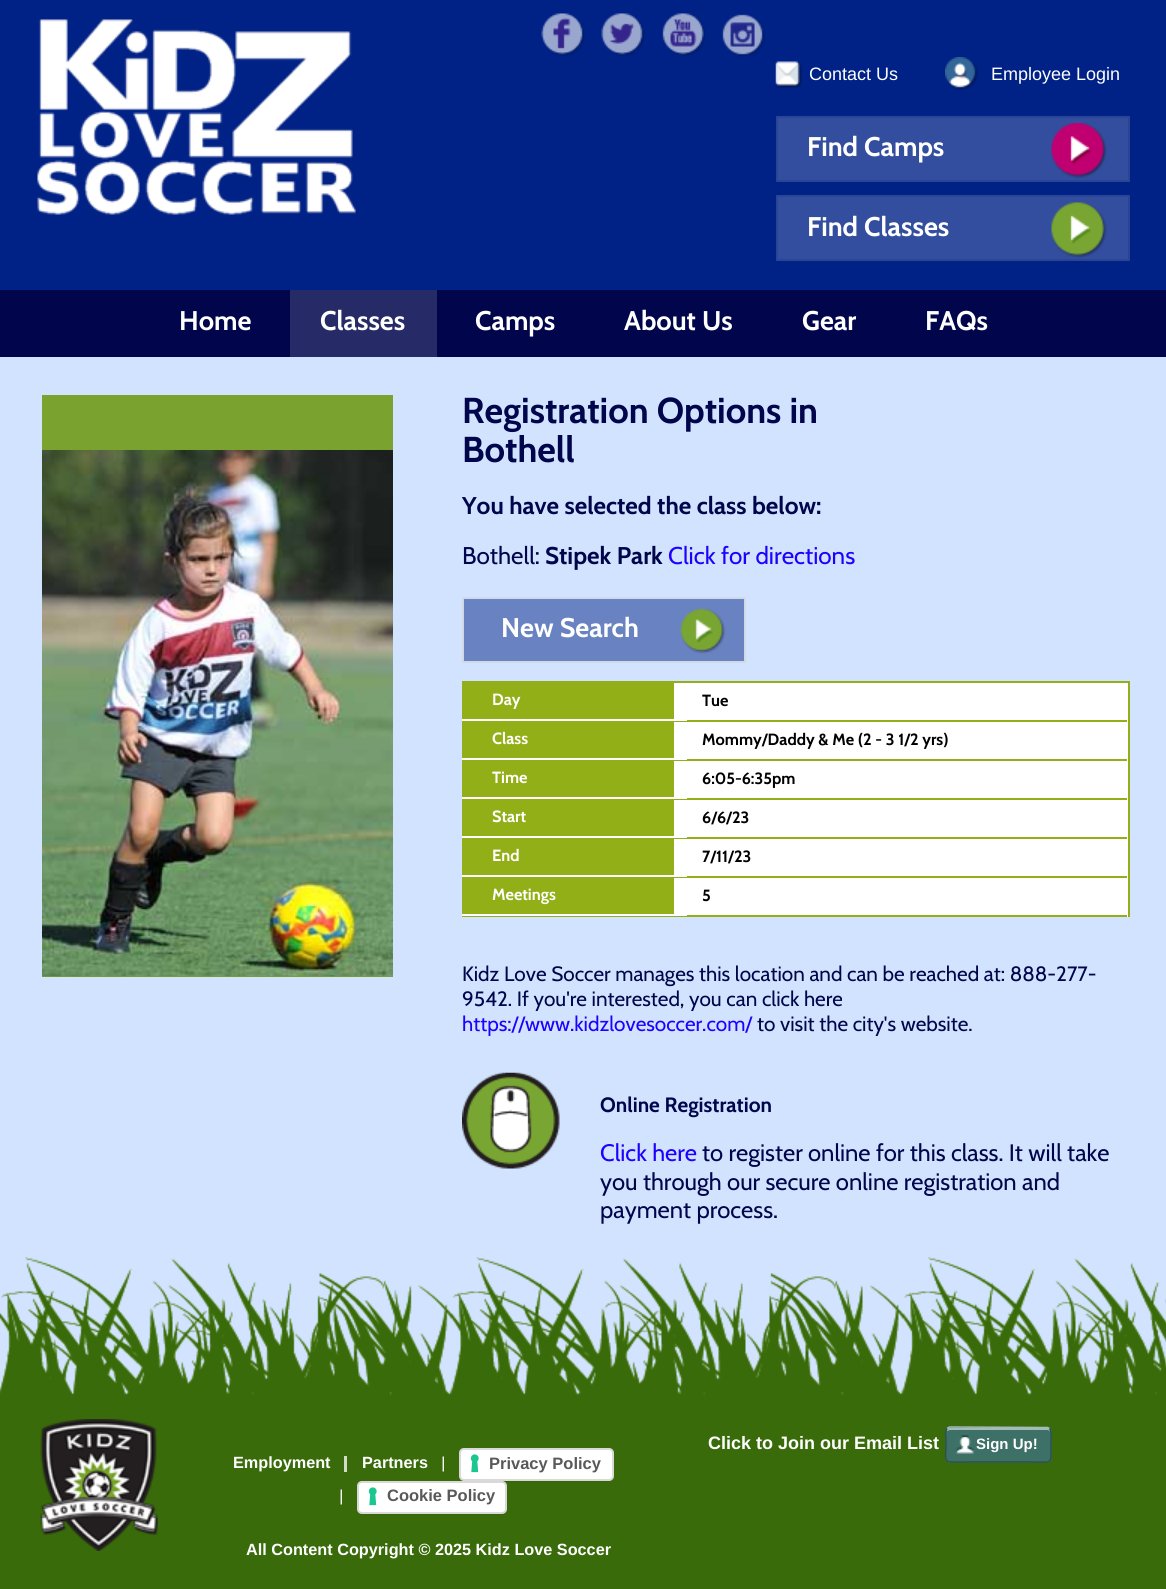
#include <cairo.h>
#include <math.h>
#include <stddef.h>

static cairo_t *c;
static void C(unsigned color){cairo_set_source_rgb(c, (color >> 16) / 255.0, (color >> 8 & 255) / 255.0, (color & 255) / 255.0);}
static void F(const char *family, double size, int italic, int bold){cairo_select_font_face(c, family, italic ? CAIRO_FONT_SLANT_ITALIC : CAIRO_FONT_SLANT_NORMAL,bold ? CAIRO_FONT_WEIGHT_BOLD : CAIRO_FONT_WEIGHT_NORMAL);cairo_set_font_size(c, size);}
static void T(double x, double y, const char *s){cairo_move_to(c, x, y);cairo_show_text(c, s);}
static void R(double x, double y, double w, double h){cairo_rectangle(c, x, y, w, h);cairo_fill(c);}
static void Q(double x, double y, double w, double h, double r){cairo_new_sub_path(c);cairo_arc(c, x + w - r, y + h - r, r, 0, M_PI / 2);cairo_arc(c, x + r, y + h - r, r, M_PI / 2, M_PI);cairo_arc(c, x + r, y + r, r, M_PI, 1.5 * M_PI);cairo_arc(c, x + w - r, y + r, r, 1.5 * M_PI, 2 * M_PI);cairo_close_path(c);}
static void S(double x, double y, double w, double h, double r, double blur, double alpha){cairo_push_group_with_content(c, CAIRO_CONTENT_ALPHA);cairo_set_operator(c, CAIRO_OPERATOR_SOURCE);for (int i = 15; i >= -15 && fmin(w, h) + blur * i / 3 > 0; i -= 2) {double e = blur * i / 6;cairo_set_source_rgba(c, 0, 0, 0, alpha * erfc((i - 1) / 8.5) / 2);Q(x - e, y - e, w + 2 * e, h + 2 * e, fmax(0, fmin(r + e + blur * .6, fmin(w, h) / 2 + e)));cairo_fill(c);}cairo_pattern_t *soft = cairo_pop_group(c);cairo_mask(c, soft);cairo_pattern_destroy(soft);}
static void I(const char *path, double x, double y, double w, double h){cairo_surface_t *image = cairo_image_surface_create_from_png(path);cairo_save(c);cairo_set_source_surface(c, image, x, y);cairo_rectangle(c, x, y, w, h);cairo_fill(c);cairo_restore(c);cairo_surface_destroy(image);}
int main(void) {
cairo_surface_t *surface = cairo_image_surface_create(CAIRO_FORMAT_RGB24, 1166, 1589);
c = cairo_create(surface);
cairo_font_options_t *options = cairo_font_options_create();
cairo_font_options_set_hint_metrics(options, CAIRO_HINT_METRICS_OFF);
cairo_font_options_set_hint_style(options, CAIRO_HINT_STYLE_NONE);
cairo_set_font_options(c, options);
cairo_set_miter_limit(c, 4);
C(0xd2e3ff);
cairo_paint(c);
C(0x002286);
R(0,0,1166,290);
I("1.png",37,19,319,196);
I("2.png",541,13,44,44);
I("3.png",601,13,44,44);
I("4.png",662,13,43,44);
I("5.png",722,14,43,43);
I("6.png",775,61,28,28);
F("Liberation Sans",18,0,0);
C(0xffffff);
T(809,80,"Contact Us");
I("7.png",945,57,33,33);
T(991,80,"Employee Login");
C(0x334e9e);
Q(776,116,354,66,1.5);
cairo_fill(c);
I("8.png",1051,123,56,56);
Q(777,117,352,64,.5);
C(0x2a4595);
cairo_stroke(c);
F("Cabin",27,0,1);
C(0xffffff);
T(807,156,"Find Camps");
C(0x334e9e);
Q(776,195,354,66,1.5);
cairo_fill(c);
I("9.png",1051,202,56,56);
Q(777,196,352,64,.5);
C(0x2a4595);
cairo_stroke(c);
C(0xffffff);
T(807,236,"Find Classes");
C(0x00054c);
R(0,290,1166,67);
C(0xffffff);
T(179,330,"Home");
C(0x262a67);
R(290,290,147,67);
C(0xffffff);
T(320,330,"Classes");
T(475,330,"Camps");
T(624,330,"About Us");
T(802,330,"Gear");
T(925,330,"FAQs");
C(0x79a22e);
R(42,395,351,582);
I("10.png",42,450,351,527);
F("Cabin",36,0,1);
C(0x00054c);
T(462,423,"Registration Options in");
T(462,462,"Bothell");
F("Cabin",24.2,0,1);
T(462,514,"You have selected the class below:");
F("Cabin",24.2,0,0);
T(462,564,"Bothell:");
F("Cabin",24.2,0,1);
T(545,564,"Stipek Park");
F("Cabin",24.2,0,0);
C(0x1e00ff);
T(668,564,"Click for directions");
C(0x6982c2);
R(464,599,280,62);
I("11.png",680,608,46,46);
cairo_rectangle(c,463,598,282,64);
C(0xd1d9e7);
cairo_stroke(c);
F("Cabin",27,0,1);
C(0xffffff);
T(501,637,"New Search");
C(0x92af18);
R(462,681,668,236);
C(0xffffff);
R(674,683,454,234);
C(0x92af18);
R(674,720,453,2);
C(0xffffff);
R(462,719,225,2);
F("Cabin",16.25,0,1);
T(492,705,"Day");
C(0x000000);
T(702,706,"Tue");
C(0x92af18);
R(674,759,453,2);
C(0xffffff);
R(462,758,225,2);
T(492,744,"Class");
C(0x000000);
T(702,745,"Mommy/Daddy & Me (2 - 3 1/2 yrs)");
C(0x92af18);
R(674,798,453,2);
C(0xffffff);
R(462,797,225,2);
T(492,783,"Time");
C(0x000000);
T(702,784,"6:05-6:35pm");
C(0x92af18);
R(674,837,453,2);
C(0xffffff);
R(462,836,225,2);
T(492,822,"Start");
C(0x000000);
T(702,823,"6/6/23");
C(0x92af18);
R(674,876,453,2);
C(0xffffff);
R(462,875,225,2);
T(492,861,"End");
C(0x000000);
T(702,862,"7/11/23");
C(0x92af18);
R(674,915,453,2);
C(0xffffff);
R(462,914,225,2);
T(492,900,"Meetings");
C(0x000000);
T(702,901,"5");
F("Cabin",20.7,0,0);
C(0x00054c);
T(462,981,"Kidz Love Soccer manages this location and can be reached at: 888-277-");
T(462,1006,"9542. If you're interested, you can click here");
C(0x1e00ff);
T(462,1031,"https://www.kidzlovesoccer.com/");
C(0x00054c);
T(757,1031,"to visit the city's website.");
I("12.png",462,1072,98,97);
F("Cabin",20.75,0,1);
T(600,1112,"Online Registration");
F("Cabin",23.8,0,0);
C(0x1e00ff);
T(600,1161,"Click here");
C(0x00054c);
T(702,1161,"to register online for this class. It will take");
T(600,1190,"you through our secure online registration and");
T(600,1218,"payment process.");
I("13.png",0,1257,1166,141);
C(0x396b0a);
R(0,1398,1166,191);
I("14.png",40,1419,118,132);
F("Liberation Sans",18,0,1);
C(0xffffff);
T(708,1449,"Click to Join our Email List");
C(0x3d7067);
Q(945,1427,107,36,5);
cairo_fill(c);
I("15.png",955,1435,19,19);
C(0xa3bcb9);
cairo_new_path(c);
cairo_move_to(c,950,1430);
cairo_line_to(c,1047,1430);
cairo_curve_to(c,1049,1430,1050,1431,1050,1432);
cairo_line_to(c,1050,1431);
cairo_curve_to(c,1050,1429,1049,1428,1047,1428);
cairo_line_to(c,950,1428);
cairo_curve_to(c,948,1428,947,1429,947,1431);
cairo_close_path(c);
cairo_fill(c);
cairo_new_path(c);
cairo_move_to(c,947,1428.5);
cairo_line_to(c,949.5,1427);
cairo_line_to(c,1047.5,1427.5);
cairo_line_to(c,1049.5,1428.5);
cairo_set_line_width(c,1.5);
cairo_stroke(c);
cairo_new_path(c);
cairo_move_to(c,1049.5,1428.5);
cairo_curve_to(c,1052,1430.5,1051,1441.5,1051,1444.5);
cairo_curve_to(c,1051,1465.5,1053.5,1462,1031,1462);
cairo_line_to(c,966,1462);
cairo_curve_to(c,941,1462,946,1465,946,1440);
cairo_curve_to(c,946,1437,944.5,1431,947,1428.5);
C(0x2d524a);
cairo_stroke(c);
F("Liberation Sans",15,0,1);
C(0xffffff);
T(976,1449,"Sign Up!");
F("Liberation Sans",16.25,0,1);
T(233,1468,"Employment");
T(362,1468,"Partners");
C(0xd1dcc8);
R(344,1456,3,16);
I("16.png",442,1456,2,16);
C(0x000000);
S(461,1451,151,30,3,1,.15);
C(0xffffff);
Q(459,1448,155,33,5);
cairo_fill(c);
I("17.png",470,1454,9,19);
Q(460,1449,153,31,4);
cairo_set_source_rgba(c,0,0,0,0.15);
cairo_set_line_width(c,2);
cairo_stroke(c);
F("Liberation Sans",16.5,0,1);
C(0x595959);
T(489,1469,"Privacy Policy");
I("16.png",340,1489,2,16);
C(0x000000);
S(359,1484,147,30,3,1,.15);
C(0xffffff);
Q(357,1481,150,33,5);
cairo_fill(c);
I("17.png",368,1487,9,19);
Q(358,1482,148,31,4);
cairo_set_source_rgba(c,0,0,0,0.15);
cairo_stroke(c);
C(0x595959);
T(387,1501,"Cookie Policy");
F("Liberation Sans",16.25,0,1);
C(0xffffff);
T(246,1555,"All Content Copyright © 2025 Kidz Love Soccer");
cairo_surface_write_to_png(surface, "o.png");
cairo_font_options_destroy(options);
cairo_destroy(c);
cairo_surface_destroy(surface);
return 0;
}
